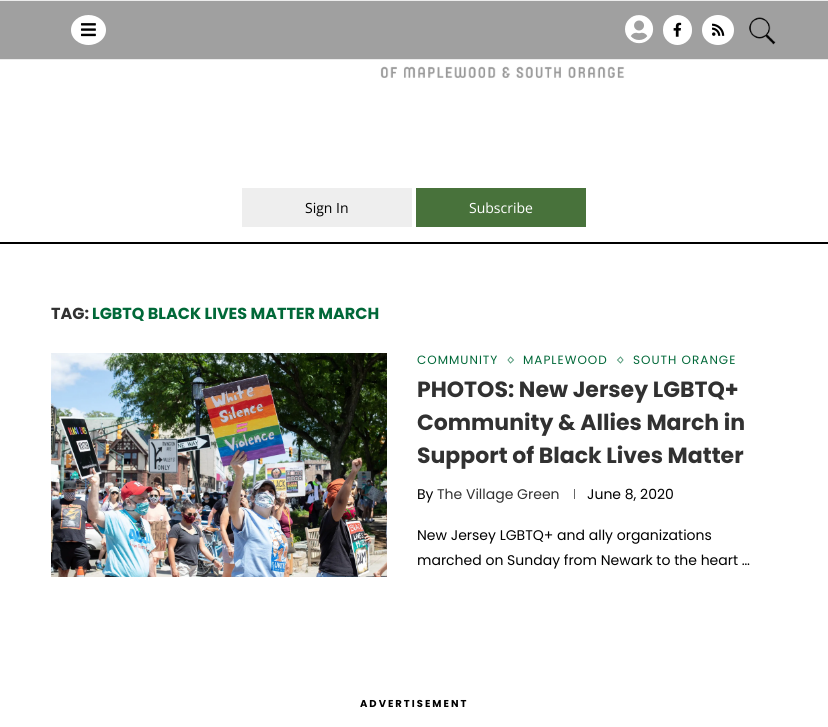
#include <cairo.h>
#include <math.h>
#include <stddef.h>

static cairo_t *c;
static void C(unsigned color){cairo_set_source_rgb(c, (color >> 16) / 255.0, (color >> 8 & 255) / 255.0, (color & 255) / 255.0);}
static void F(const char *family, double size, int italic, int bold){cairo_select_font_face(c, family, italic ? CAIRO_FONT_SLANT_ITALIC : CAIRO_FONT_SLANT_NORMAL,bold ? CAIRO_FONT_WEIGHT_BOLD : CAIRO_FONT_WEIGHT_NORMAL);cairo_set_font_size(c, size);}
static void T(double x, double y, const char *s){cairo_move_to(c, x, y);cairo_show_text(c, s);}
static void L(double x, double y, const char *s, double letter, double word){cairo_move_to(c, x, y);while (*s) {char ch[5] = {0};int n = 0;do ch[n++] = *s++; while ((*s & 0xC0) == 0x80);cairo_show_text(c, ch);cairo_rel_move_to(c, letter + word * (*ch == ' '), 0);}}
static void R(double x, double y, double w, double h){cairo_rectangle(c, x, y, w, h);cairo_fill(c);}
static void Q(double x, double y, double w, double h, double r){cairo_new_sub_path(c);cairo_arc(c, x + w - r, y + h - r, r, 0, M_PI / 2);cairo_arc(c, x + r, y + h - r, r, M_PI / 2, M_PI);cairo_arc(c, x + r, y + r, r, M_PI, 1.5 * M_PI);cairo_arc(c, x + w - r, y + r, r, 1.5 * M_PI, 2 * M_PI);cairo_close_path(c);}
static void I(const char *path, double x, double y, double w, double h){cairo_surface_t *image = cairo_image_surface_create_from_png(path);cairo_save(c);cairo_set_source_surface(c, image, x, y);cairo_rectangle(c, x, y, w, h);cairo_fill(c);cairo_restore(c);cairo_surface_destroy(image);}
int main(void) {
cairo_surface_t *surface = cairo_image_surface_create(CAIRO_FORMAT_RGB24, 828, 727);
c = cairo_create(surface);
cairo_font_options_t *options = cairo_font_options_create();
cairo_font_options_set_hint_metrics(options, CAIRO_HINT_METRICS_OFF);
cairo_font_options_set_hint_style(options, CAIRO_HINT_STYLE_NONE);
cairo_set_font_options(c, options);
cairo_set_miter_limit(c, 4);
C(0xffffff);
cairo_paint(c);
C(0xa0a0a0);
R(0,1,828,58);
C(0xececec);
R(0,0,828,1);
R(0,59,828,1);
C(0xffffff);
cairo_new_path(c);
cairo_move_to(c,88.5,15);
cairo_curve_to(c,98,15,106,21.5,106,30);
cairo_curve_to(c,106,38.5,98,45,88.5,45);
cairo_curve_to(c,79,45,71,38.5,71,30);
cairo_curve_to(c,71,21.5,79,15,88.5,15);
cairo_close_path(c);
cairo_fill(c);
I("1.png",81,23,15,14);
I("2.png",625,15,29,29);
Q(663,15,29,30,14.5);
cairo_fill(c);
I("3.png",673,22,9,15);
cairo_new_path(c);
cairo_move_to(c,718,15);
cairo_curve_to(c,727,15,734,21.5,734,30);
cairo_curve_to(c,734,38.5,727,45,718,45);
cairo_curve_to(c,709,45,702,38.5,702,30);
cairo_curve_to(c,702,21.5,709,15,718,15);
cairo_close_path(c);
cairo_fill(c);
I("4.png",712,23,13,13);
I("5.png",749,17,27,28);
I("6.png",175,60,477,18);
C(0x000000);
R(0,242,828,2);
C(0xeeeeee);
R(242,188,170,39);
F("Open Sans",14,0,0);
C(0x000000);
T(305,213,"Sign In");
C(0x48723b);
R(416,188,170,39);
C(0xffffff);
T(469,213,"Subscribe");
F("Poppins",16,0,1);
C(0x313131);
T(51,319,"TAG:");
C(0x006838);
T(92,319,"LGBTQ BLACK LIVES MATTER MARCH");
I("7.png",51,353,336,224);
F("Poppins",12,0,0);
L(417,364,"COMMUNITY",1,0);
cairo_new_path(c);
cairo_move_to(c,510.5,357);
cairo_line_to(c,513.5,360);
cairo_line_to(c,510.5,363);
cairo_line_to(c,508,360);
cairo_close_path(c);
C(0x599d7e);
cairo_set_line_width(c,1);
cairo_stroke(c);
C(0x006838);
L(523,364,"MAPLEWOOD",1,0);
cairo_new_path(c);
cairo_move_to(c,620.5,357);
cairo_line_to(c,623,360);
cairo_line_to(c,620.5,363);
cairo_line_to(c,617.5,360);
cairo_close_path(c);
C(0x599d7e);
cairo_stroke(c);
C(0x006838);
L(633,364,"SOUTH ORANGE",1,0);
F("Poppins",22,0,1);
C(0x313131);
T(417,397,"PHOTOS: New Jersey LGBTQ+");
T(417,430,"Community & Allies March in");
T(417,463,"Support of Black Lives Matter");
F("Poppins",14,0,0);
C(0x000000);
T(417,499,"By");
C(0x313131);
T(437,499,"The Village Green");
C(0x666666);
R(574,489,1,10);
C(0x000000);
T(587,499,"June 8, 2020");
T(417,540,"New Jersey LGBTQ+ and ally organizations");
T(417,565,"marched on Sunday from Newark to the heart …");
F("Poppins",10,0,1);
L(360,707,"ADVERTISEMENT",2,0);
cairo_surface_write_to_png(surface, "o.png");
cairo_font_options_destroy(options);
cairo_destroy(c);
cairo_surface_destroy(surface);
return 0;
}
